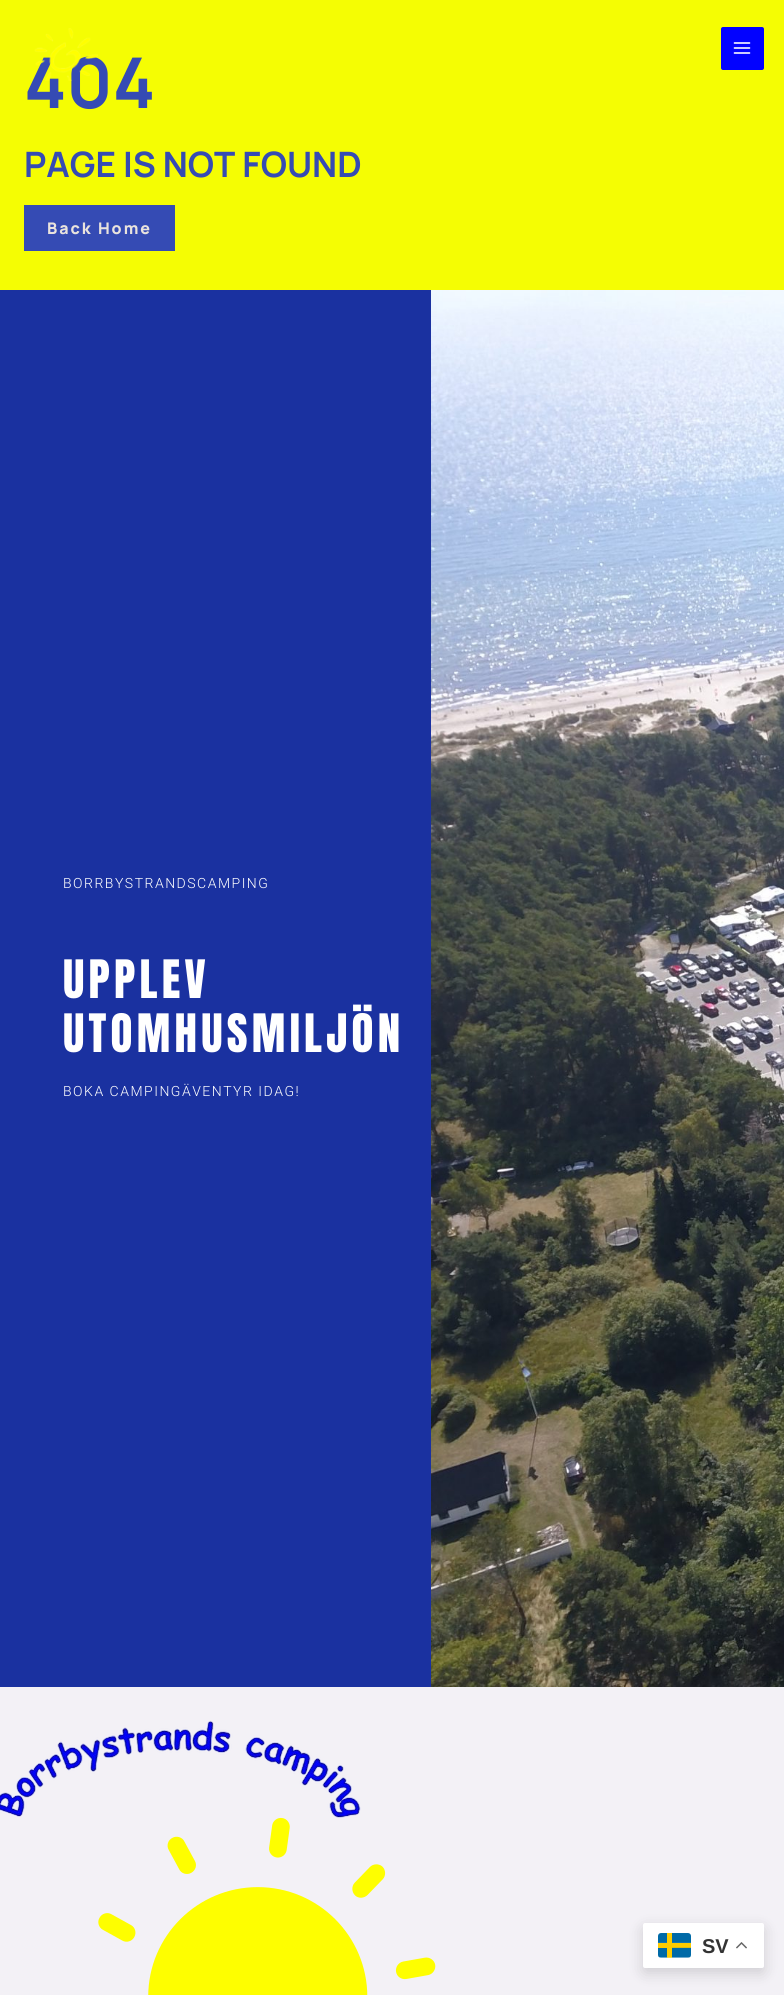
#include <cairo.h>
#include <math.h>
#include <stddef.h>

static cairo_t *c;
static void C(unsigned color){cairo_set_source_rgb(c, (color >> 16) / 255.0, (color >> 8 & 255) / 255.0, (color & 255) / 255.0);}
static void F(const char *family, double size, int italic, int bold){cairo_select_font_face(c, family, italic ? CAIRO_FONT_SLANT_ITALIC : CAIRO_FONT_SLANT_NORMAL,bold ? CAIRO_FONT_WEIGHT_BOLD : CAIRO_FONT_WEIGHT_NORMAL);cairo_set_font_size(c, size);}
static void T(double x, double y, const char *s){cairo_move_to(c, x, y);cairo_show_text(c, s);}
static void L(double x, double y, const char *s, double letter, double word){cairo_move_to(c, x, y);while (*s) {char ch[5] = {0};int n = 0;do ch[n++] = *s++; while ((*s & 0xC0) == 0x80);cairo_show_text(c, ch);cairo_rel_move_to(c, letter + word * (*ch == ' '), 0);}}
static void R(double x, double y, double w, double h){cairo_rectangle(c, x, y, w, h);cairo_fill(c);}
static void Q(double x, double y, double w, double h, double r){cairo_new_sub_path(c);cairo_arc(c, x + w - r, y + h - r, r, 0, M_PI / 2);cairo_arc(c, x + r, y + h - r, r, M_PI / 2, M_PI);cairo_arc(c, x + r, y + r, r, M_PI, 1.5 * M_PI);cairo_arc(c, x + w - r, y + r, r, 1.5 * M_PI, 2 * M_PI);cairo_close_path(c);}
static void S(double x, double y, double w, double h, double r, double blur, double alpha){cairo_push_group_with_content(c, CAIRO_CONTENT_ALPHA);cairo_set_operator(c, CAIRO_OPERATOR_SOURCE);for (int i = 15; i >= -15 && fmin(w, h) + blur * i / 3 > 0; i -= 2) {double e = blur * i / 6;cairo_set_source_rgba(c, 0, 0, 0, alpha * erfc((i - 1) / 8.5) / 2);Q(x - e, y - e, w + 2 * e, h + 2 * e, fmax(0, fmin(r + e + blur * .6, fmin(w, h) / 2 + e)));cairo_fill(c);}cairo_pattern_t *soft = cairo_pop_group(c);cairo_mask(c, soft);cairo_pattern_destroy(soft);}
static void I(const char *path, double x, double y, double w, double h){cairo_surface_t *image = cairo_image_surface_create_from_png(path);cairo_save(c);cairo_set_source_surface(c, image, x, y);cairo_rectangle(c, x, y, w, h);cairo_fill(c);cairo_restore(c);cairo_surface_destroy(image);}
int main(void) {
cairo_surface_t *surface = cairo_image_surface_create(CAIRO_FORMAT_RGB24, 784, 1995);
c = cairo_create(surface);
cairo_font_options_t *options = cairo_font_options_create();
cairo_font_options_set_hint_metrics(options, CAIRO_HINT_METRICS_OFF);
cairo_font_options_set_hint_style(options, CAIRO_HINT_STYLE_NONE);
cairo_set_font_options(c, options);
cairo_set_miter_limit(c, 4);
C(0xf3f1f6);
cairo_paint(c);
C(0xf5fd03);
R(0,0,784,290);
F("Manrope",70,0,1);
C(0x354bb4);
T(24,108,"404");
I("1.png",34,28,64,53);
C(0x0202ff);
Q(721,27,43,43,2);
cairo_fill(c);
I("2.png",733,42,18,12);
F("Manrope",35,0,1);
C(0x354bb4);
T(24,177,"PAGE IS NOT FOUND");
R(24,205,151,46);
F("Manrope ExtraBold",16,0,0);
C(0xe9e3dd);
L(47,234,"Back Home",2,0);
C(0x1a31a0);
R(0,290,431,1397);
F("Roboto Light",14,0,0);
C(0xffffff);
L(63,888,"BORRBYSTRANDSCAMPING",1.5,0);
F("Anton",45,0,0);
L(63,998,"UPPLEV",4.25,0);
L(63,1052,"UTOMHUSMILJÖN",4.25,0);
F("Roboto Light",14,0,0);
L(63,1096,"BOKA CAMPINGÄVENTYR IDAG!",1.5,0);
I("3.png",431,290,353,1397);
I("4.png",0,1720,361,98);
I("5.png",98,1817,338,178);
C(0x000000);
S(643,1928,121,45,2,7.5,.15);
C(0xffffff);
Q(643,1923,121,45,2);
cairo_fill(c);
I("6.png",658,1933,33,25);
F("Liberation Sans",20,0,1);
C(0x333333);
T(702,1953,"SV");
I("7.png",736,1942,11,7);
cairo_surface_write_to_png(surface, "o.png");
cairo_font_options_destroy(options);
cairo_destroy(c);
cairo_surface_destroy(surface);
return 0;
}
